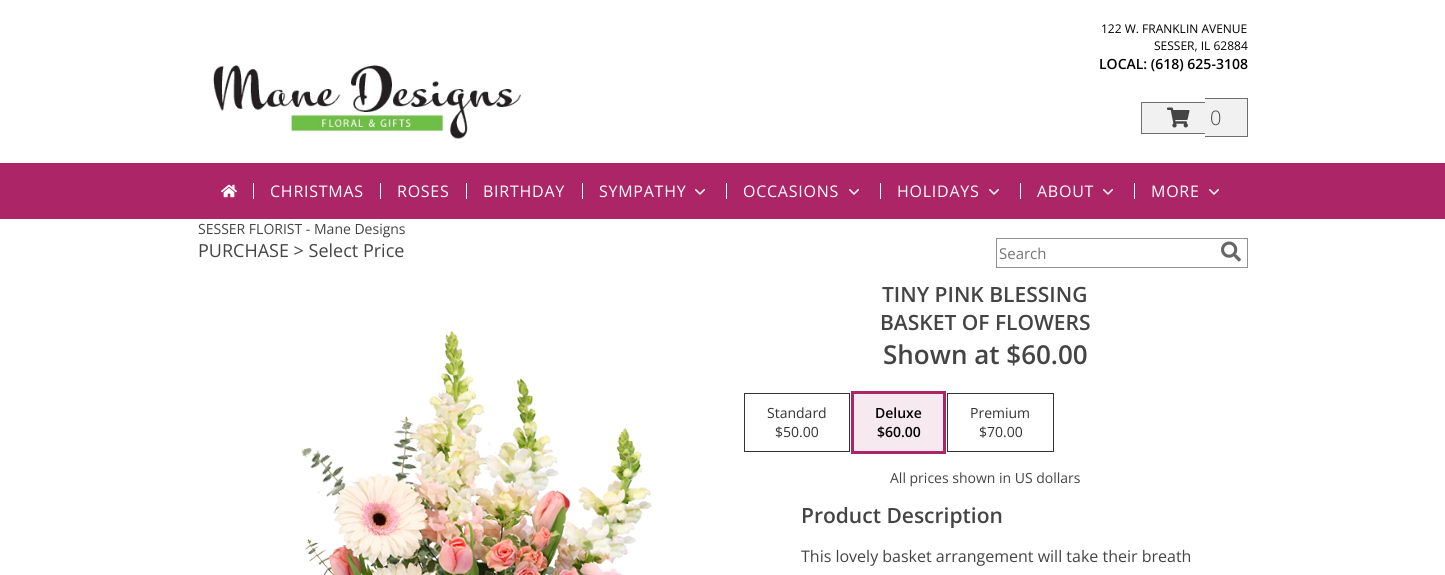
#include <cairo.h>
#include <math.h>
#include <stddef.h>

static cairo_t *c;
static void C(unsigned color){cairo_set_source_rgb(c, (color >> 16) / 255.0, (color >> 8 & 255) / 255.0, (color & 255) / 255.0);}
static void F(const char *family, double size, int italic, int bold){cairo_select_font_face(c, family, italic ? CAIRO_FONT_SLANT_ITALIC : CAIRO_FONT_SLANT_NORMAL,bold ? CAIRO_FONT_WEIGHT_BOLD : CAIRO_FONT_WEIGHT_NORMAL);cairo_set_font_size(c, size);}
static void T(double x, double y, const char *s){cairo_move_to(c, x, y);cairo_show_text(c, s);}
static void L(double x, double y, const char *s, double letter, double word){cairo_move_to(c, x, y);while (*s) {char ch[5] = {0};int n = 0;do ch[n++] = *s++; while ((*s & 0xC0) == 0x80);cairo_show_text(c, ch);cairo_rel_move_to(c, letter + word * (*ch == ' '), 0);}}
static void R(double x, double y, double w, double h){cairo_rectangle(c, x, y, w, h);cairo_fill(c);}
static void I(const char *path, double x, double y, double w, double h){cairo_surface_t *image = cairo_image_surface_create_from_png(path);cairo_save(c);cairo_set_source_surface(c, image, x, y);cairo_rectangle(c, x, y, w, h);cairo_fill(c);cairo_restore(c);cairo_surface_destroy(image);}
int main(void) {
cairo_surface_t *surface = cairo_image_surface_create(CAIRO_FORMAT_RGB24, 1445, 575);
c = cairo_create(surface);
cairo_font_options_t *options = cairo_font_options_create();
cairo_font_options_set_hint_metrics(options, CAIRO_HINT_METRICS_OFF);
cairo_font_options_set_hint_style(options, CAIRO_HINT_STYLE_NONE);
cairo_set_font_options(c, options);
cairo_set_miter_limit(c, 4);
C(0xffffff);
cairo_paint(c);
I("1.png",213,65,308,74);
F("Open Sans",12,0,0);
C(0x000000);
T(1101,33,"122 W. FRANKLIN AVENUE");
T(1154,50,"SESSER, IL 62884");
F("Open Sans SemiBold",14,0,0);
T(1099,69,"LOCAL: (618) 625-3108");
C(0xf1f1f1);
R(1142,103,63,30);
C(0x6e6e6e);
R(1141,102,64,1);
R(1141,133,64,1);
R(1141,102,1,32);
C(0xf1f1f1);
R(1205,98,5,39);
C(0x6e6e6e);
R(1205,98,43,1);
R(1205,136,5,1);
C(0xf1f1f1);
R(1210,99,37,37);
C(0x6e6e6e);
R(1247,98,1,39);
R(1210,136,38,1);
I("2.png",1167,107,23,21);
F("Open Sans Light",20,0,0);
C(0x444444);
T(1210,125,"0");
C(0xab2567);
R(0,163,1445,56);
I("3.png",221,184,16,14);
C(0xffffff);
R(253,183,1,16);
F("Open Sans",16,0,0);
L(270,197,"CHRISTMAS",.75,0);
R(380,183,1,16);
L(397,197,"ROSES",.75,0);
R(466,183,1,16);
L(483,197,"BIRTHDAY",.75,0);
R(582,183,1,16);
L(599,197,"SYMPATHY",.75,0);
I("4.png",695,189,10,6);
R(726,183,1,16);
L(743,197,"OCCASIONS",.75,0);
I("4.png",849,189,10,6);
R(880,183,1,16);
L(897,197,"HOLIDAYS",.75,0);
I("4.png",989,189,10,6);
R(1020,183,1,16);
L(1037,197,"ABOUT",.75,0);
I("4.png",1103,189,10,6);
R(1134,183,1,16);
L(1151,197,"MORE",.75,0);
I("4.png",1209,189,10,6);
F("Open Sans",14,0,0);
C(0x444444);
T(198,234,"SESSER FLORIST - Mane Designs");
F("Open Sans",18,0,0);
T(198,257,"PURCHASE > Select Price");
cairo_rectangle(c,996.5,238.5,251,29);
C(0x919191);
cairo_set_line_width(c,1);
cairo_stroke(c);
F("Open Sans",15,0,0);
C(0x757575);
T(999,259,"Search");
I("5.png",1221,241,20,21);
I("6.png",301,330,351,245);
F("Open Sans SemiBold",21,0,0);
C(0x444444);
T(882,302,"TINY PINK BLESSING");
T(880,330,"BASKET OF FLOWERS");
F("Open Sans SemiBold",26,0,0);
T(883,364,"Shown at $60.00");
cairo_rectangle(c,744.5,393.5,105,58);
C(0x333333);
cairo_stroke(c);
F("Open Sans",14,0,0);
T(767,418,"Standard");
T(775,437,"$50.00");
cairo_rectangle(c,852.5,392.5,92,60);
C(0xab2567);
cairo_set_line_width(c,3);
cairo_stroke(c);
C(0xf6e9ef);
R(854,394,89,57);
F("Open Sans SemiBold",14,0,0);
C(0x000000);
T(875,418,"Deluxe");
T(877,437,"$60.00");
cairo_rectangle(c,947.5,393.5,106,58);
C(0x333333);
cairo_set_line_width(c,1);
cairo_stroke(c);
F("Open Sans",14,0,0);
T(970,418,"Premium");
T(979,437,"$70.00");
C(0x444444);
T(890,483,"All prices shown in US dollars");
F("Open Sans SemiBold",21,0,0);
T(801,523,"Product Description");
F("Open Sans",16,0,0);
T(801,562,"This lovely basket arrangement will take their breath");
cairo_surface_write_to_png(surface, "o.png");
cairo_font_options_destroy(options);
cairo_destroy(c);
cairo_surface_destroy(surface);
return 0;
}
